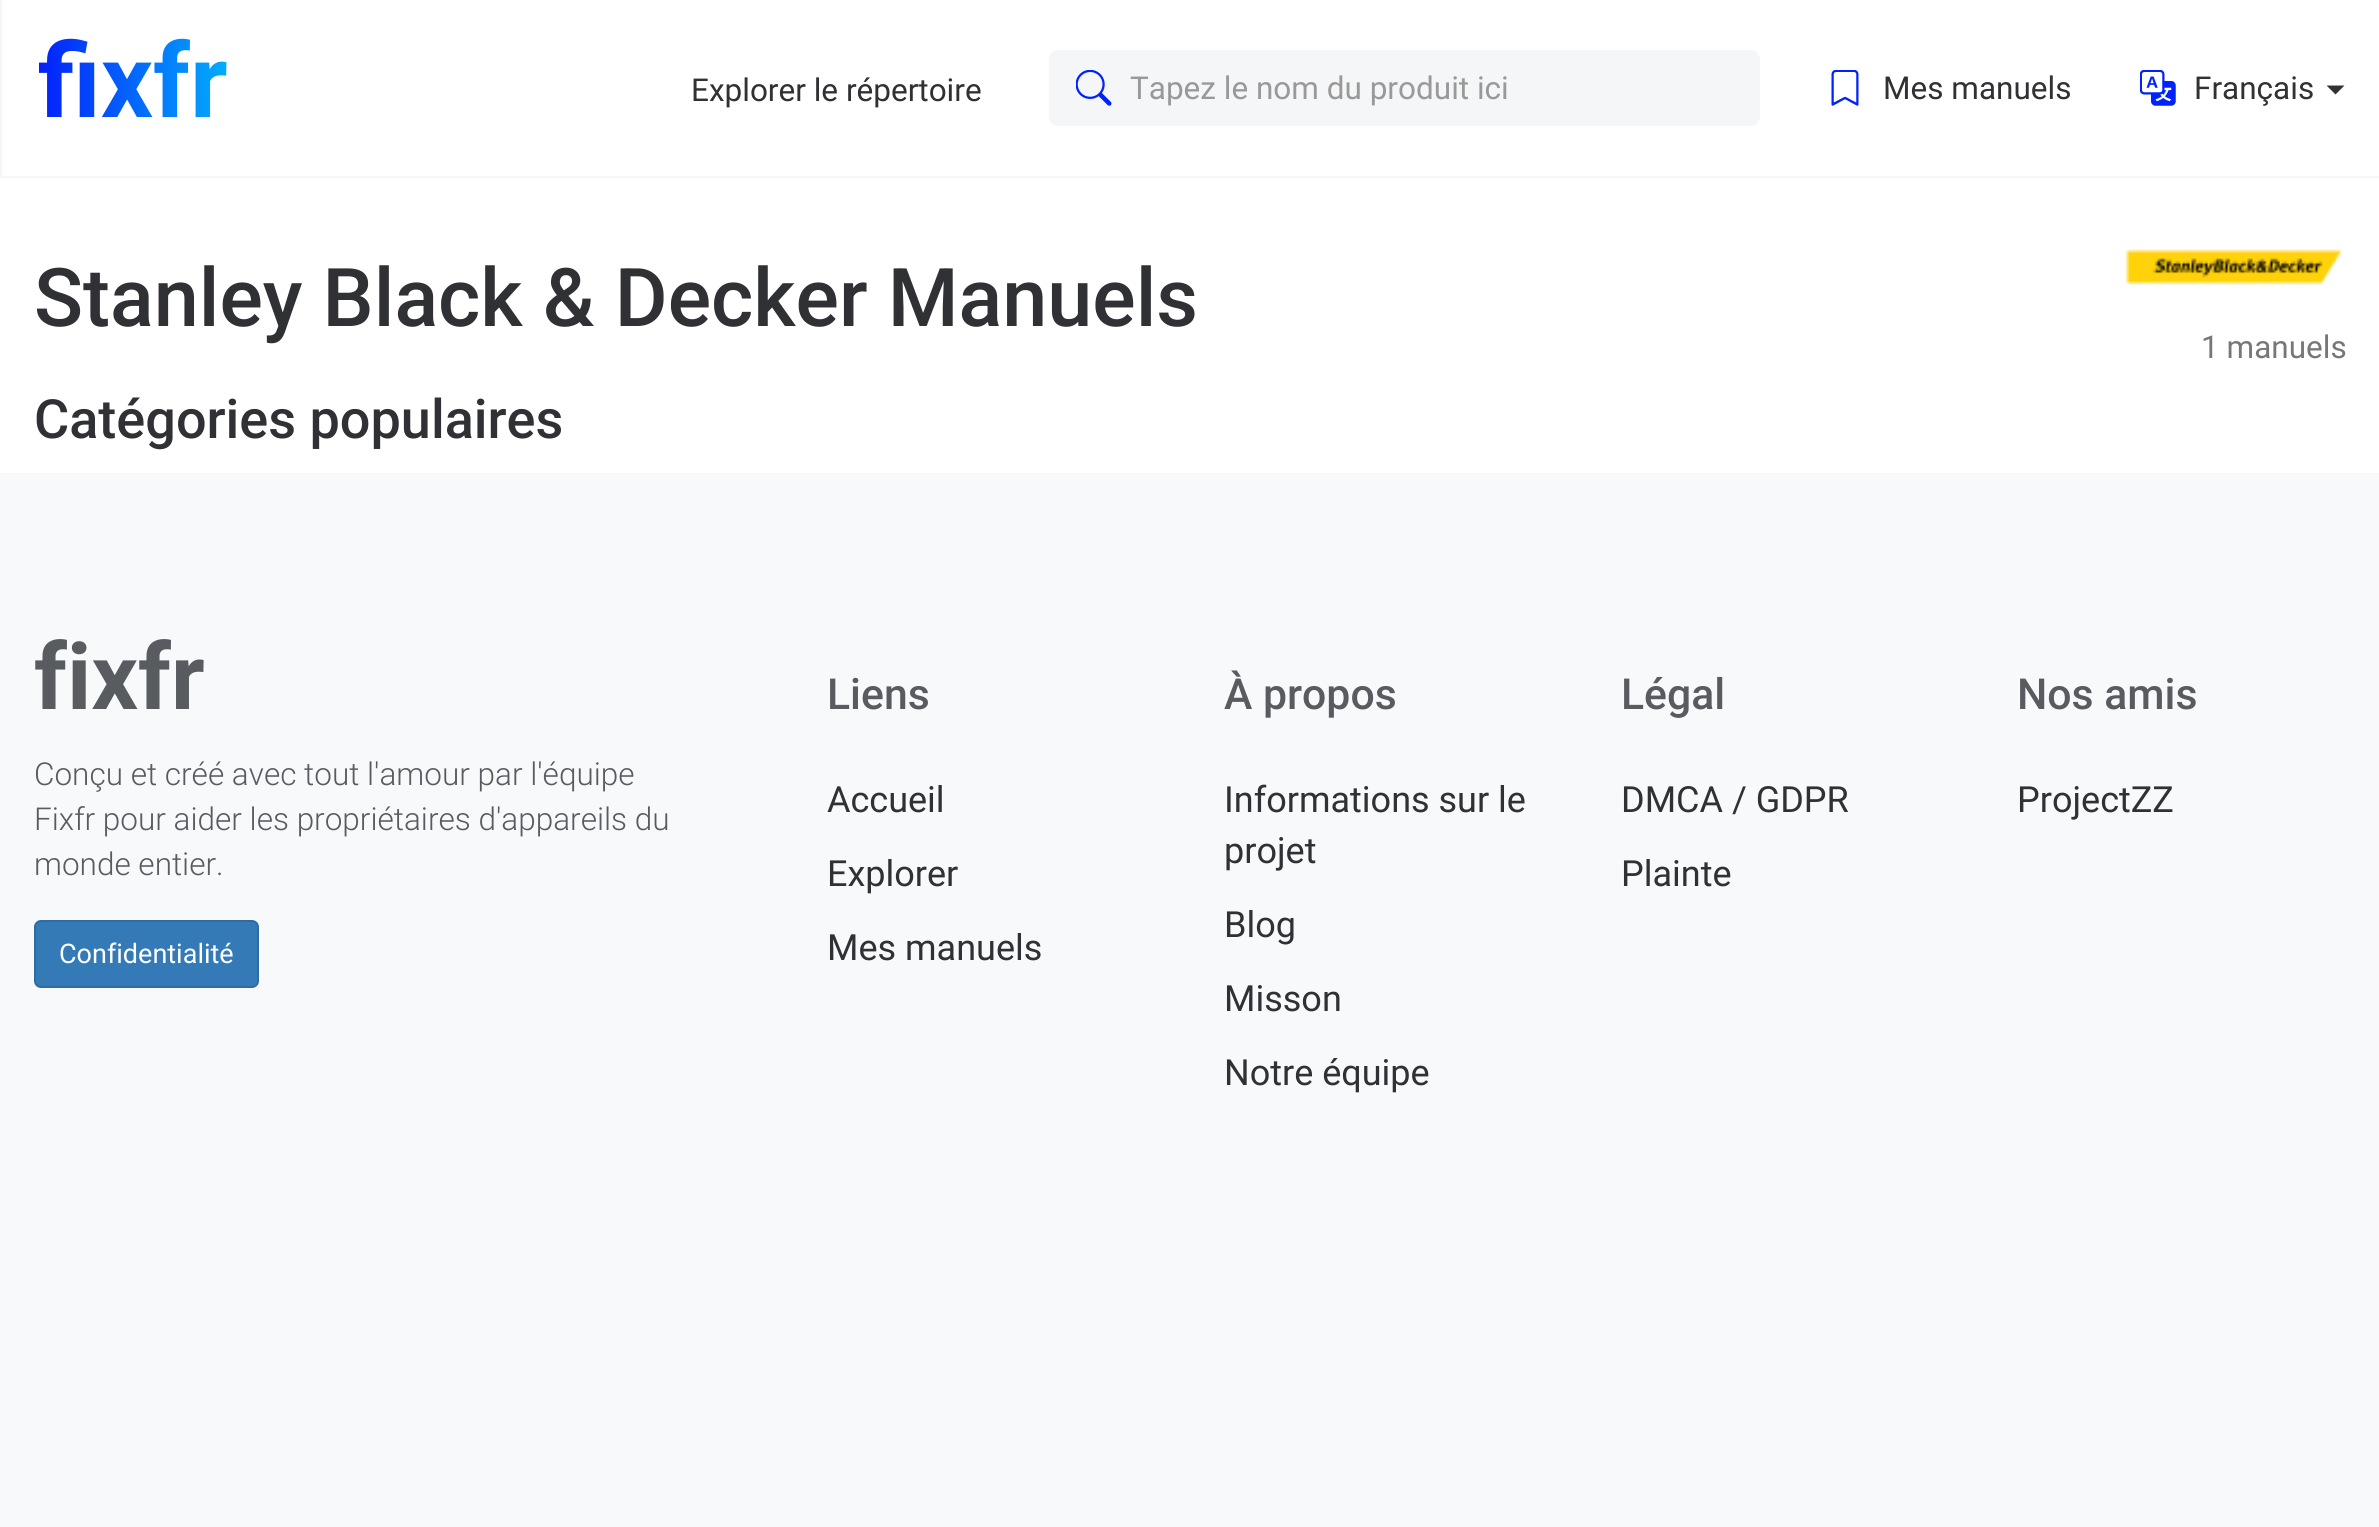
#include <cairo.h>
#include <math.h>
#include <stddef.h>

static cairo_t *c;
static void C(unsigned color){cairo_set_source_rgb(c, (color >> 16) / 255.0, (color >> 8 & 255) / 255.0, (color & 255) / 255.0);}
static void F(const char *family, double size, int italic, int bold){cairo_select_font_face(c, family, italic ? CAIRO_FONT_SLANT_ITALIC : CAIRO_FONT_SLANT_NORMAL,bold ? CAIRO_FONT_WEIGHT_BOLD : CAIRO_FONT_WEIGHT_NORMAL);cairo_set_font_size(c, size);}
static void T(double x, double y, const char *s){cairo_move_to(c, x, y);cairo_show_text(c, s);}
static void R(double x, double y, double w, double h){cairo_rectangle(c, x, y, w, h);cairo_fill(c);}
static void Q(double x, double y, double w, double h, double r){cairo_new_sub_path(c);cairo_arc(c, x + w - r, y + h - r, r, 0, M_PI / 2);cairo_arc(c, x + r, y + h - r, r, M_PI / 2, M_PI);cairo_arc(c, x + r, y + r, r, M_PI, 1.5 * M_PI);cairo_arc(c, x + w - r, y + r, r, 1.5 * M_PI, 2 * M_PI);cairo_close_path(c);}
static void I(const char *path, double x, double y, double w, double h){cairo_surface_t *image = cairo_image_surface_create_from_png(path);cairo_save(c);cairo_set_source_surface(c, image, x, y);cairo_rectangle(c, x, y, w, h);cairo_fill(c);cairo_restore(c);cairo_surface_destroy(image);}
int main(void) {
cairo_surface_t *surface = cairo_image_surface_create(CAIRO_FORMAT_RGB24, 2379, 1527);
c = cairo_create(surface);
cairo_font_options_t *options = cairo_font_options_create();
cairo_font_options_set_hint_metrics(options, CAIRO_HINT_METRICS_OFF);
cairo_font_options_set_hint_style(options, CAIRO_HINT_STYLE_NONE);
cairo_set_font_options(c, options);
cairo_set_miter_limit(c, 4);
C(0xffffff);
cairo_paint(c);
cairo_rectangle(c,1,-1,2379,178);
C(0xf5f6f7);
cairo_stroke(c);
I("1.png",39,38,188,79);
F("Roboto",31.5,0,0);
C(0x2f3134);
T(691,101,"Explorer le répertoire");
C(0xf5f6f7);
cairo_new_path(c);
cairo_move_to(c,1058,50);
cairo_line_to(c,1130,50);
cairo_line_to(c,1130,126);
cairo_line_to(c,1058,126);
cairo_curve_to(c,1053,126,1049,122,1049,117);
cairo_line_to(c,1049,59);
cairo_curve_to(c,1049,54,1053,50,1058,50);
cairo_close_path(c);
cairo_fill(c);
I("2.png",1076,70,36,36);
cairo_new_path(c);
cairo_move_to(c,1130,50);
cairo_line_to(c,1751,50);
cairo_curve_to(c,1756,50,1760,54,1760,59);
cairo_line_to(c,1760,117);
cairo_curve_to(c,1760,122,1756,126,1751,126);
cairo_line_to(c,1130,126);
cairo_close_path(c);
cairo_fill(c);
C(0x999999);
T(1130,99,"Tapez le nom du produit ici");
I("3.png",1831,70,28,36);
C(0x2f3134);
T(1883,99,"Mes manuels");
I("4.png",2140,70,36,36);
T(2194,99,"Français");
cairo_new_path(c);
cairo_move_to(c,2326.5,85.5);
cairo_line_to(c,2344.5,85.5);
cairo_line_to(c,2335.5,94.5);
cairo_close_path(c);
cairo_fill(c);
F("Roboto Medium",81,0,0);
T(34,326,"Stanley Black & Decker Manuels");
I("5.png",2125,249,218,36);
F("Roboto",31.5,0,0);
C(0x777777);
T(2201,358,"1 manuels");
F("Roboto Medium",54,0,0);
C(0x2f3134);
T(34,438,"Catégories populaires");
C(0xf8f9fa);
R(0,473,2379,1054);
F("Roboto",92,0,1);
C(0x585b5f);
T(34,709,"fixfr");
F("Roboto Light",31.5,0,0);
T(34,785,"Conçu et créé avec tout l'amour par l'équipe");
T(34,830,"Fixfr pour aider les propriétaires d'appareils du");
T(34,875,"monde entier.");
C(0x337ab7);
Q(35,921,223,66,6);
cairo_fill_preserve(c);
C(0x2e6da4);
cairo_stroke(c);
F("Roboto",27,0,0);
C(0xffffff);
T(59,963,"Confidentialité");
F("Roboto Medium",42.75,0,0);
C(0x585b5f);
T(827,709,"Liens");
F("Roboto",36,0,0);
C(0x2f3134);
T(827,812,"Accueil");
T(827,886,"Explorer");
T(827,960,"Mes manuels");
F("Roboto Medium",42.75,0,0);
C(0x585b5f);
T(1224,709,"À propos");
F("Roboto",36,0,0);
C(0x2f3134);
T(1224,812,"Informations sur le");
T(1224,863,"projet");
T(1224,937,"Blog");
T(1224,1011,"Misson");
T(1224,1085,"Notre équipe");
F("Roboto Medium",42.75,0,0);
C(0x585b5f);
T(1621,709,"Légal");
F("Roboto",36,0,0);
C(0x2f3134);
T(1621,812,"DMCA / GDPR");
T(1621,886,"Plainte");
F("Roboto Medium",42.75,0,0);
C(0x585b5f);
T(2017,709,"Nos amis");
F("Roboto",36,0,0);
C(0x2f3134);
T(2017,812,"ProjectZZ");
cairo_surface_write_to_png(surface, "o.png");
cairo_font_options_destroy(options);
cairo_destroy(c);
cairo_surface_destroy(surface);
return 0;
}
